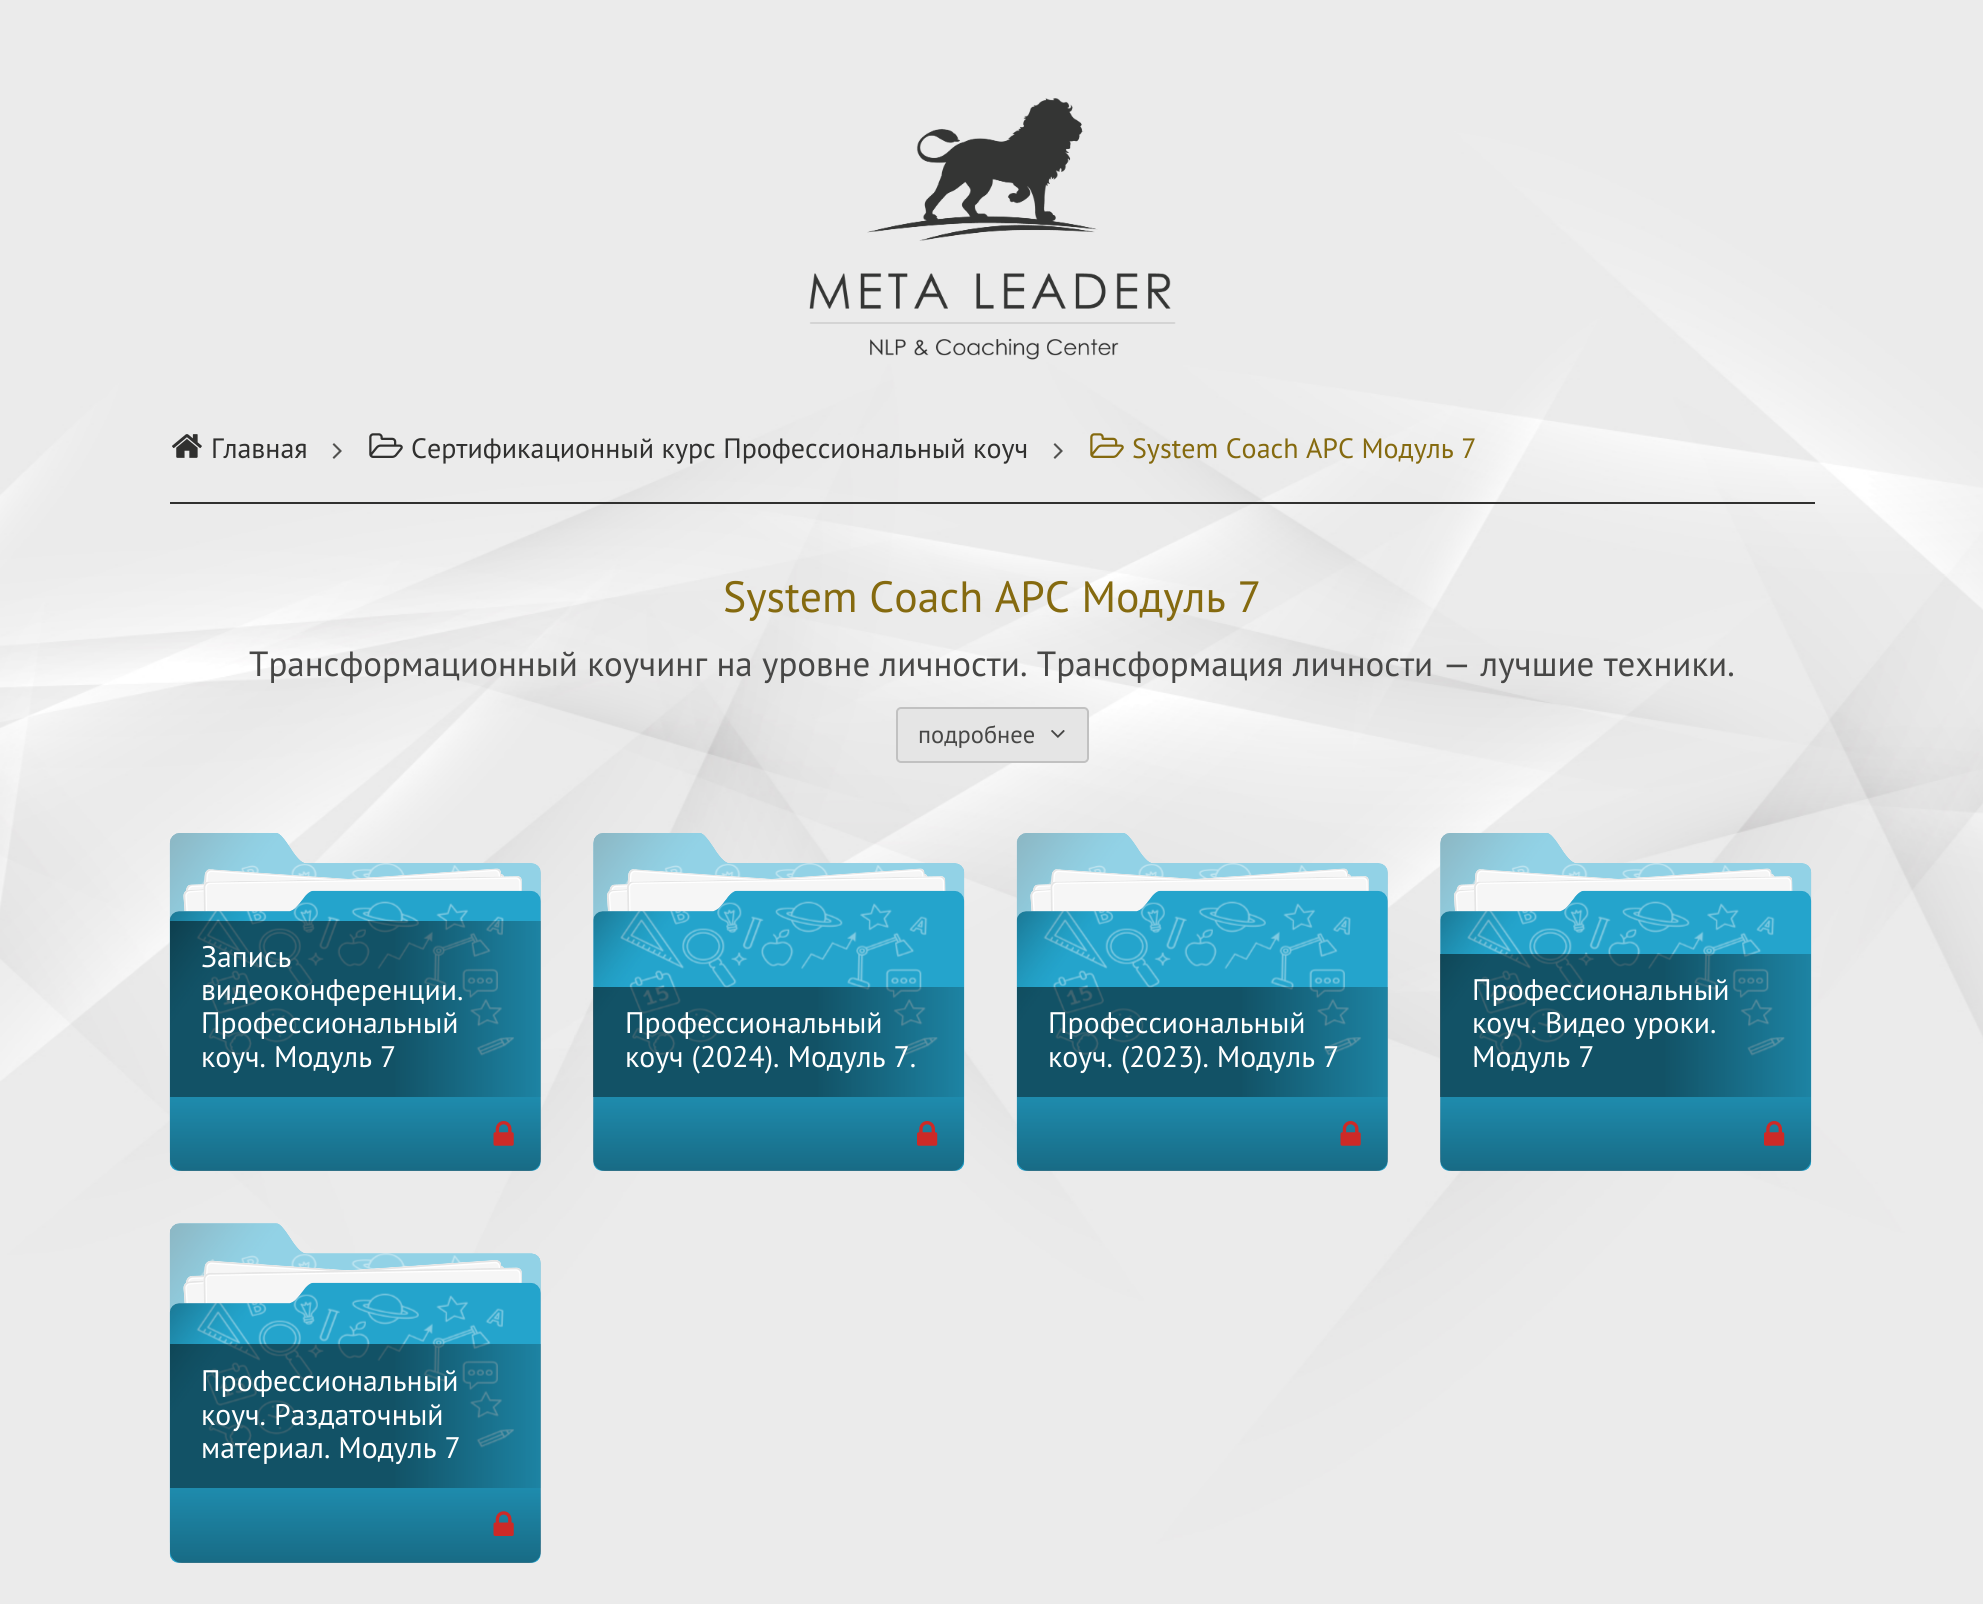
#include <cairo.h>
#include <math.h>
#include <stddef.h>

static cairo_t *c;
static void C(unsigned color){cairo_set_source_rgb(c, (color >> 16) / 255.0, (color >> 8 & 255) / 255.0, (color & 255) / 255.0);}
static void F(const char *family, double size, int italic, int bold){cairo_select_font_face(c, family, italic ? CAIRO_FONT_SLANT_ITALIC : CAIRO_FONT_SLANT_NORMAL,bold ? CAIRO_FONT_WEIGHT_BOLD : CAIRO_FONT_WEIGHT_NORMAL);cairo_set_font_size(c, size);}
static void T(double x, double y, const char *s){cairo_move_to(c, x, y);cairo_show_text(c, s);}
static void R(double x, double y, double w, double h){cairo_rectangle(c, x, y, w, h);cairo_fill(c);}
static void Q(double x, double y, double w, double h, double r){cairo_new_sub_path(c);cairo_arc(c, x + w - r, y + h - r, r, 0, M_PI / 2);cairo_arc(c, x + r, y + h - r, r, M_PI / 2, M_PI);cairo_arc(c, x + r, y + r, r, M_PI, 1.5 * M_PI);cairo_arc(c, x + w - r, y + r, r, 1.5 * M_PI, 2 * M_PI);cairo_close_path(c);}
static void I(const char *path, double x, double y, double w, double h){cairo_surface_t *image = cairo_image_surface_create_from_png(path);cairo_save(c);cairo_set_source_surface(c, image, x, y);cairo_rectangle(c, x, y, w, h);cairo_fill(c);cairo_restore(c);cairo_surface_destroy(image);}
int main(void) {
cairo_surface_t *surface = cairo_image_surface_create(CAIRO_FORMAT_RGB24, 1983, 1604);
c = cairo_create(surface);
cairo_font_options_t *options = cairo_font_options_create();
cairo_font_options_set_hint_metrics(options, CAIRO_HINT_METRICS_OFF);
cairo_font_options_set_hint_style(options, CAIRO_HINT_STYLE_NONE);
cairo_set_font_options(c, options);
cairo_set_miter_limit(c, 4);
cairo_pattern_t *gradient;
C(0xffffff);
cairo_paint(c);
I("1.png",0,0,1983,1604);
I("2.png",809,98,367,262);
C(0x30302f);
R(170,502,1645,2);
I("3.png",172,434,30,24);
F("PT Sans",28,0,0);
T(211,458,"Главная");
I("4.png",332,443,10,16);
I("5.png",369,433,34,25);
T(411,458,"Сертификационный курс Профессиональный коуч");
I("4.png",1053,443,10,16);
I("6.png",1090,433,34,25);
C(0x856a0f);
T(1132,458,"System Coach APC Модуль 7");
F("PT Sans",43.75,0,0);
T(723,612,"System Coach APC Модуль 7");
F("PT Sans",35,0,0);
C(0x474746);
T(249,676,"Трансформационный коучинг на уровне личности. Трансформация личности — лучшие техники.");
C(0xe5e5e5);
Q(897,708,191,54,4);
cairo_fill_preserve(c);
C(0xc1c1c1);
cairo_stroke(c);
F("PT Sans",24.5,0,0);
C(0x474746);
T(918,743,"подробнее");
I("7.png",1051,730,14,8);
I("8.png",169,833,372,323);
I("11.png",186,874,318,17);
I("10.png",203,869,145,20);
I("9.png",183,868,319,44);
I("12.png",203,876,319,36);
I("13.png",169,890,372,281);
gradient = cairo_pattern_create_linear(170,998,541,998);
cairo_pattern_add_color_stop_rgba(gradient,0,0,0,0,.5);
cairo_pattern_add_color_stop_rgba(gradient,.6,0,0,0,.5);
cairo_pattern_add_color_stop_rgba(gradient,1,0,0,0,.2);
cairo_set_source(c,gradient);
cairo_pattern_destroy(gradient);
R(170,921,371,176);
F("PT Sans",29.75,0,0);
C(0xffffff);
T(201,967,"Запись");
T(201,1000,"видеоконференции.");
T(201,1033,"Профессиональный");
T(201,1067,"коуч. Модуль 7");
gradient = cairo_pattern_create_linear(355,1171,355,1097);
cairo_pattern_add_color_stop_rgba(gradient,0,0,0,0,.35);
cairo_pattern_add_color_stop_rgba(gradient,1,0,0,0,.15);
cairo_set_source(c,gradient);
cairo_pattern_destroy(gradient);
cairo_new_path(c);
cairo_move_to(c,170,1097);
cairo_line_to(c,541,1097);
cairo_line_to(c,541,1159);
cairo_curve_to(c,541,1165.5,535.5,1171,529,1171);
cairo_line_to(c,182,1171);
cairo_curve_to(c,175.5,1171,170,1165.5,170,1159);
cairo_close_path(c);
cairo_fill(c);
I("14.png",493,1121,21,25);
I("15.png",593,833,372,323);
I("18.png",609,873,319,18);
I("17.png",627,869,144,18);
I("16.png",607,868,318,44);
I("19.png",627,876,319,36);
I("20.png",593,890,372,281);
gradient = cairo_pattern_create_linear(593,1031,964,1031);
cairo_pattern_add_color_stop_rgba(gradient,0,0,0,0,.5);
cairo_pattern_add_color_stop_rgba(gradient,.6,0,0,0,.5);
cairo_pattern_add_color_stop_rgba(gradient,1,0,0,0,.2);
cairo_set_source(c,gradient);
cairo_pattern_destroy(gradient);
R(593,987,371,110);
C(0xffffff);
T(625,1033,"Профессиональный");
T(625,1067,"коуч (2024). Модуль 7.");
gradient = cairo_pattern_create_linear(779,1171,779,1097);
cairo_pattern_add_color_stop_rgba(gradient,0,0,0,0,.35);
cairo_pattern_add_color_stop_rgba(gradient,1,0,0,0,.15);
cairo_set_source(c,gradient);
cairo_pattern_destroy(gradient);
cairo_new_path(c);
cairo_move_to(c,593,1097);
cairo_line_to(c,964,1097);
cairo_line_to(c,964,1159);
cairo_curve_to(c,964,1165.5,958.5,1171,952,1171);
cairo_line_to(c,605,1171);
cairo_curve_to(c,598.5,1171,593,1165.5,593,1159);
cairo_close_path(c);
cairo_fill(c);
I("21.png",917,1121,21,25);
I("22.png",1016,833,372,323);
I("25.png",1033,874,318,17);
I("24.png",1050,869,145,20);
I("23.png",1030,868,319,44);
I("12.png",1050,876,319,36);
I("26.png",1016,890,372,281);
gradient = cairo_pattern_create_linear(1017,1031,1388,1031);
cairo_pattern_add_color_stop_rgba(gradient,0,0,0,0,.5);
cairo_pattern_add_color_stop_rgba(gradient,.6,0,0,0,.5);
cairo_pattern_add_color_stop_rgba(gradient,1,0,0,0,.2);
cairo_set_source(c,gradient);
cairo_pattern_destroy(gradient);
R(1017,987,371,110);
C(0xffffff);
T(1048,1033,"Профессиональный");
T(1048,1067,"коуч. (2023). Модуль 7");
gradient = cairo_pattern_create_linear(1202,1171,1202,1097);
cairo_pattern_add_color_stop_rgba(gradient,0,0,0,0,.35);
cairo_pattern_add_color_stop_rgba(gradient,1,0,0,0,.15);
cairo_set_source(c,gradient);
cairo_pattern_destroy(gradient);
cairo_new_path(c);
cairo_move_to(c,1017,1097);
cairo_line_to(c,1388,1097);
cairo_line_to(c,1388,1159);
cairo_curve_to(c,1388,1165.5,1382.5,1171,1376,1171);
cairo_line_to(c,1029,1171);
cairo_curve_to(c,1022.5,1171,1017,1165.5,1017,1159);
cairo_close_path(c);
cairo_fill(c);
I("14.png",1340,1121,21,25);
I("27.png",1440,833,372,323);
I("18.png",1456,873,319,18);
I("17.png",1474,869,144,18);
I("16.png",1454,868,318,44);
I("19.png",1474,876,319,36);
I("28.png",1440,890,372,281);
gradient = cairo_pattern_create_linear(1440,1014,1811,1014);
cairo_pattern_add_color_stop_rgba(gradient,0,0,0,0,.5);
cairo_pattern_add_color_stop_rgba(gradient,.6,0,0,0,.5);
cairo_pattern_add_color_stop_rgba(gradient,1,0,0,0,.2);
cairo_set_source(c,gradient);
cairo_pattern_destroy(gradient);
R(1440,954,371,143);
C(0xffffff);
T(1472,1000,"Профессиональный");
T(1472,1033,"коуч. Видео уроки.");
T(1472,1067,"Модуль 7");
gradient = cairo_pattern_create_linear(1626,1171,1626,1097);
cairo_pattern_add_color_stop_rgba(gradient,0,0,0,0,.35);
cairo_pattern_add_color_stop_rgba(gradient,1,0,0,0,.15);
cairo_set_source(c,gradient);
cairo_pattern_destroy(gradient);
cairo_new_path(c);
cairo_move_to(c,1440,1097);
cairo_line_to(c,1811,1097);
cairo_line_to(c,1811,1159);
cairo_curve_to(c,1811,1165.5,1805.5,1171,1799,1171);
cairo_line_to(c,1452,1171);
cairo_curve_to(c,1445.5,1171,1440,1165.5,1440,1159);
cairo_close_path(c);
cairo_fill(c);
I("21.png",1764,1121,21,25);
I("29.png",169,1223,372,323);
I("32.png",186,1265,318,18);
I("31.png",203,1260,148,21);
I("30.png",183,1260,319,44);
I("33.png",203,1267,319,37);
I("34.png",169,1282,372,281);
gradient = cairo_pattern_create_linear(170,1404,541,1404);
cairo_pattern_add_color_stop_rgba(gradient,0,0,0,0,.5);
cairo_pattern_add_color_stop_rgba(gradient,.6,0,0,0,.5);
cairo_pattern_add_color_stop_rgba(gradient,1,0,0,0,.2);
cairo_set_source(c,gradient);
cairo_pattern_destroy(gradient);
R(170,1344,371,144);
C(0xffffff);
T(201,1391,"Профессиональный");
T(201,1425,"коуч. Раздаточный");
T(201,1458,"материал. Модуль 7");
gradient = cairo_pattern_create_linear(355,1563,355,1488);
cairo_pattern_add_color_stop_rgba(gradient,0,0,0,0,.35);
cairo_pattern_add_color_stop_rgba(gradient,1,0,0,0,.15);
cairo_set_source(c,gradient);
cairo_pattern_destroy(gradient);
cairo_new_path(c);
cairo_move_to(c,170,1488);
cairo_line_to(c,541,1488);
cairo_line_to(c,541,1551);
cairo_curve_to(c,541,1557.5,535.5,1563,529,1563);
cairo_line_to(c,182,1563);
cairo_curve_to(c,175.5,1563,170,1557.5,170,1551);
cairo_close_path(c);
cairo_fill(c);
I("35.png",493,1511,21,25);
cairo_surface_write_to_png(surface, "o.png");
cairo_font_options_destroy(options);
cairo_destroy(c);
cairo_surface_destroy(surface);
return 0;
}
